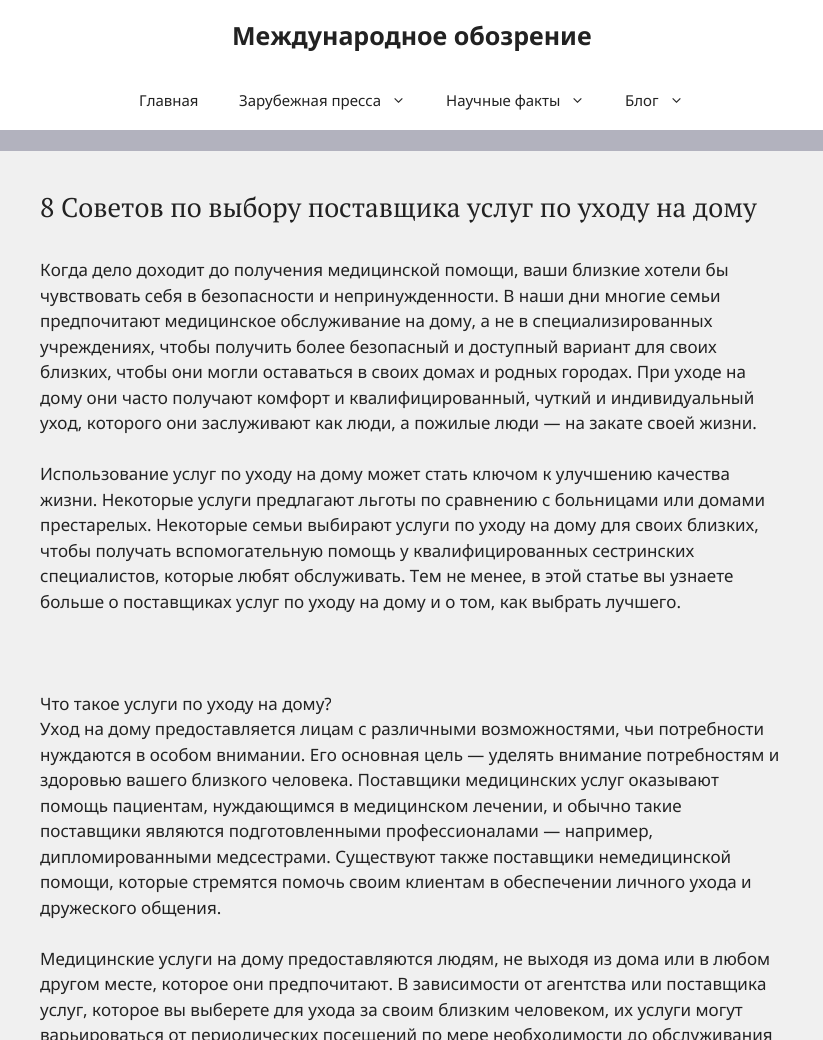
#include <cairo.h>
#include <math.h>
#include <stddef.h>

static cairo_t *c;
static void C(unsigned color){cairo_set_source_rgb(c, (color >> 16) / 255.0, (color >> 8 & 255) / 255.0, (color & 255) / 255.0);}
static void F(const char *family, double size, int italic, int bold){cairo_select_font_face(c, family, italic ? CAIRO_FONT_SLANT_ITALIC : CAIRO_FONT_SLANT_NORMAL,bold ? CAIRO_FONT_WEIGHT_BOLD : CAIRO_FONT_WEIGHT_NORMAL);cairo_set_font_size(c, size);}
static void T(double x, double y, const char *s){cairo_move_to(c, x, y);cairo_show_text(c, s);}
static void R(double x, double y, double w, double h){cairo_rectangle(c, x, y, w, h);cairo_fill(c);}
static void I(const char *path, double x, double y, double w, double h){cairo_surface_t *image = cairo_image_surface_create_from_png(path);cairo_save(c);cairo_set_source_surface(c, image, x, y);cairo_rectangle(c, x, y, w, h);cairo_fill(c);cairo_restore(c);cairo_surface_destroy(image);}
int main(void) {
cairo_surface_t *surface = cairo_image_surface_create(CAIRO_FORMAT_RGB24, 823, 1040);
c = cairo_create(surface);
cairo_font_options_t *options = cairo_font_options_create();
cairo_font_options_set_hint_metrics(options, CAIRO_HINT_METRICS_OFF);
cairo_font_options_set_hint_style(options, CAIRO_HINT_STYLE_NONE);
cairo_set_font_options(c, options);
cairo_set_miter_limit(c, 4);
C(0xb2b2be);
cairo_paint(c);
C(0xffffff);
R(0,0,823,130);
F("Noto Sans",25,0,1);
C(0x222222);
T(232,45,"Международное обозрение");
F("Noto Sans",15,0,0);
T(139,106,"Главная");
T(239,106,"Зарубежная пресса");
I("1.png",394,98,9,5);
T(446,106,"Научные факты");
I("1.png",573,98,9,5);
T(625,106,"Блог");
I("1.png",672,98,9,5);
C(0xf0f0f0);
R(0,151,823,889);
F("PT Serif",27,0,0);
C(0x222222);
T(40,217,"8 Советов по выбору поставщика услуг по уходу на дому");
F("Noto Sans",17,0,0);
T(40,276,"Когда дело доходит до получения медицинской помощи, ваши близкие хотели бы");
T(40,302,"чувствовать себя в безопасности и непринужденности. В наши дни многие семьи");
T(40,327,"предпочитают медицинское обслуживание на дому, а не в специализированных");
T(40,353,"учреждениях, чтобы получить более безопасный и доступный вариант для своих");
T(40,378,"близких, чтобы они могли оставаться в своих домах и родных городах. При уходе на");
T(40,404,"дому они часто получают комфорт и квалифицированный, чуткий и индивидуальный");
T(40,429,"уход, которого они заслуживают как люди, а пожилые люди — на закате своей жизни.");
T(40,480,"Использование услуг по уходу на дому может стать ключом к улучшению качества");
T(40,506,"жизни. Некоторые услуги предлагают льготы по сравнению с больницами или домами");
T(40,531,"престарелых. Некоторые семьи выбирают услуги по уходу на дому для своих близких,");
T(40,557,"чтобы получать вспомогательную помощь у квалифицированных сестринских");
T(40,582,"специалистов, которые любят обслуживать. Тем не менее, в этой статье вы узнаете");
T(40,608,"больше о поставщиках услуг по уходу на дому и о том, как выбрать лучшего.");
T(40,710,"Что такое услуги по уходу на дому?");
T(40,735,"Уход на дому предоставляется лицам с различными возможностями, чьи потребности");
T(40,761,"нуждаются в особом внимании. Его основная цель — уделять внимание потребностям и");
T(40,786,"здоровью вашего близкого человека. Поставщики медицинских услуг оказывают");
T(40,812,"помощь пациентам, нуждающимся в медицинском лечении, и обычно такие");
T(40,837,"поставщики являются подготовленными профессионалами — например,");
T(40,863,"дипломированными медсестрами. Существуют также поставщики немедицинской");
T(40,888,"помощи, которые стремятся помочь своим клиентам в обеспечении личного ухода и");
T(40,914,"дружеского общения.");
T(40,965,"Медицинские услуги на дому предоставляются людям, не выходя из дома или в любом");
T(40,990,"другом месте, которое они предпочитают. В зависимости от агентства или поставщика");
T(40,1016,"услуг, которое вы выберете для ухода за своим близким человеком, их услуги могут");
T(40,1041,"варьироваться от периодических посещений по мере необходимости до обслуживания");
cairo_surface_write_to_png(surface, "o.png");
cairo_font_options_destroy(options);
cairo_destroy(c);
cairo_surface_destroy(surface);
return 0;
}
